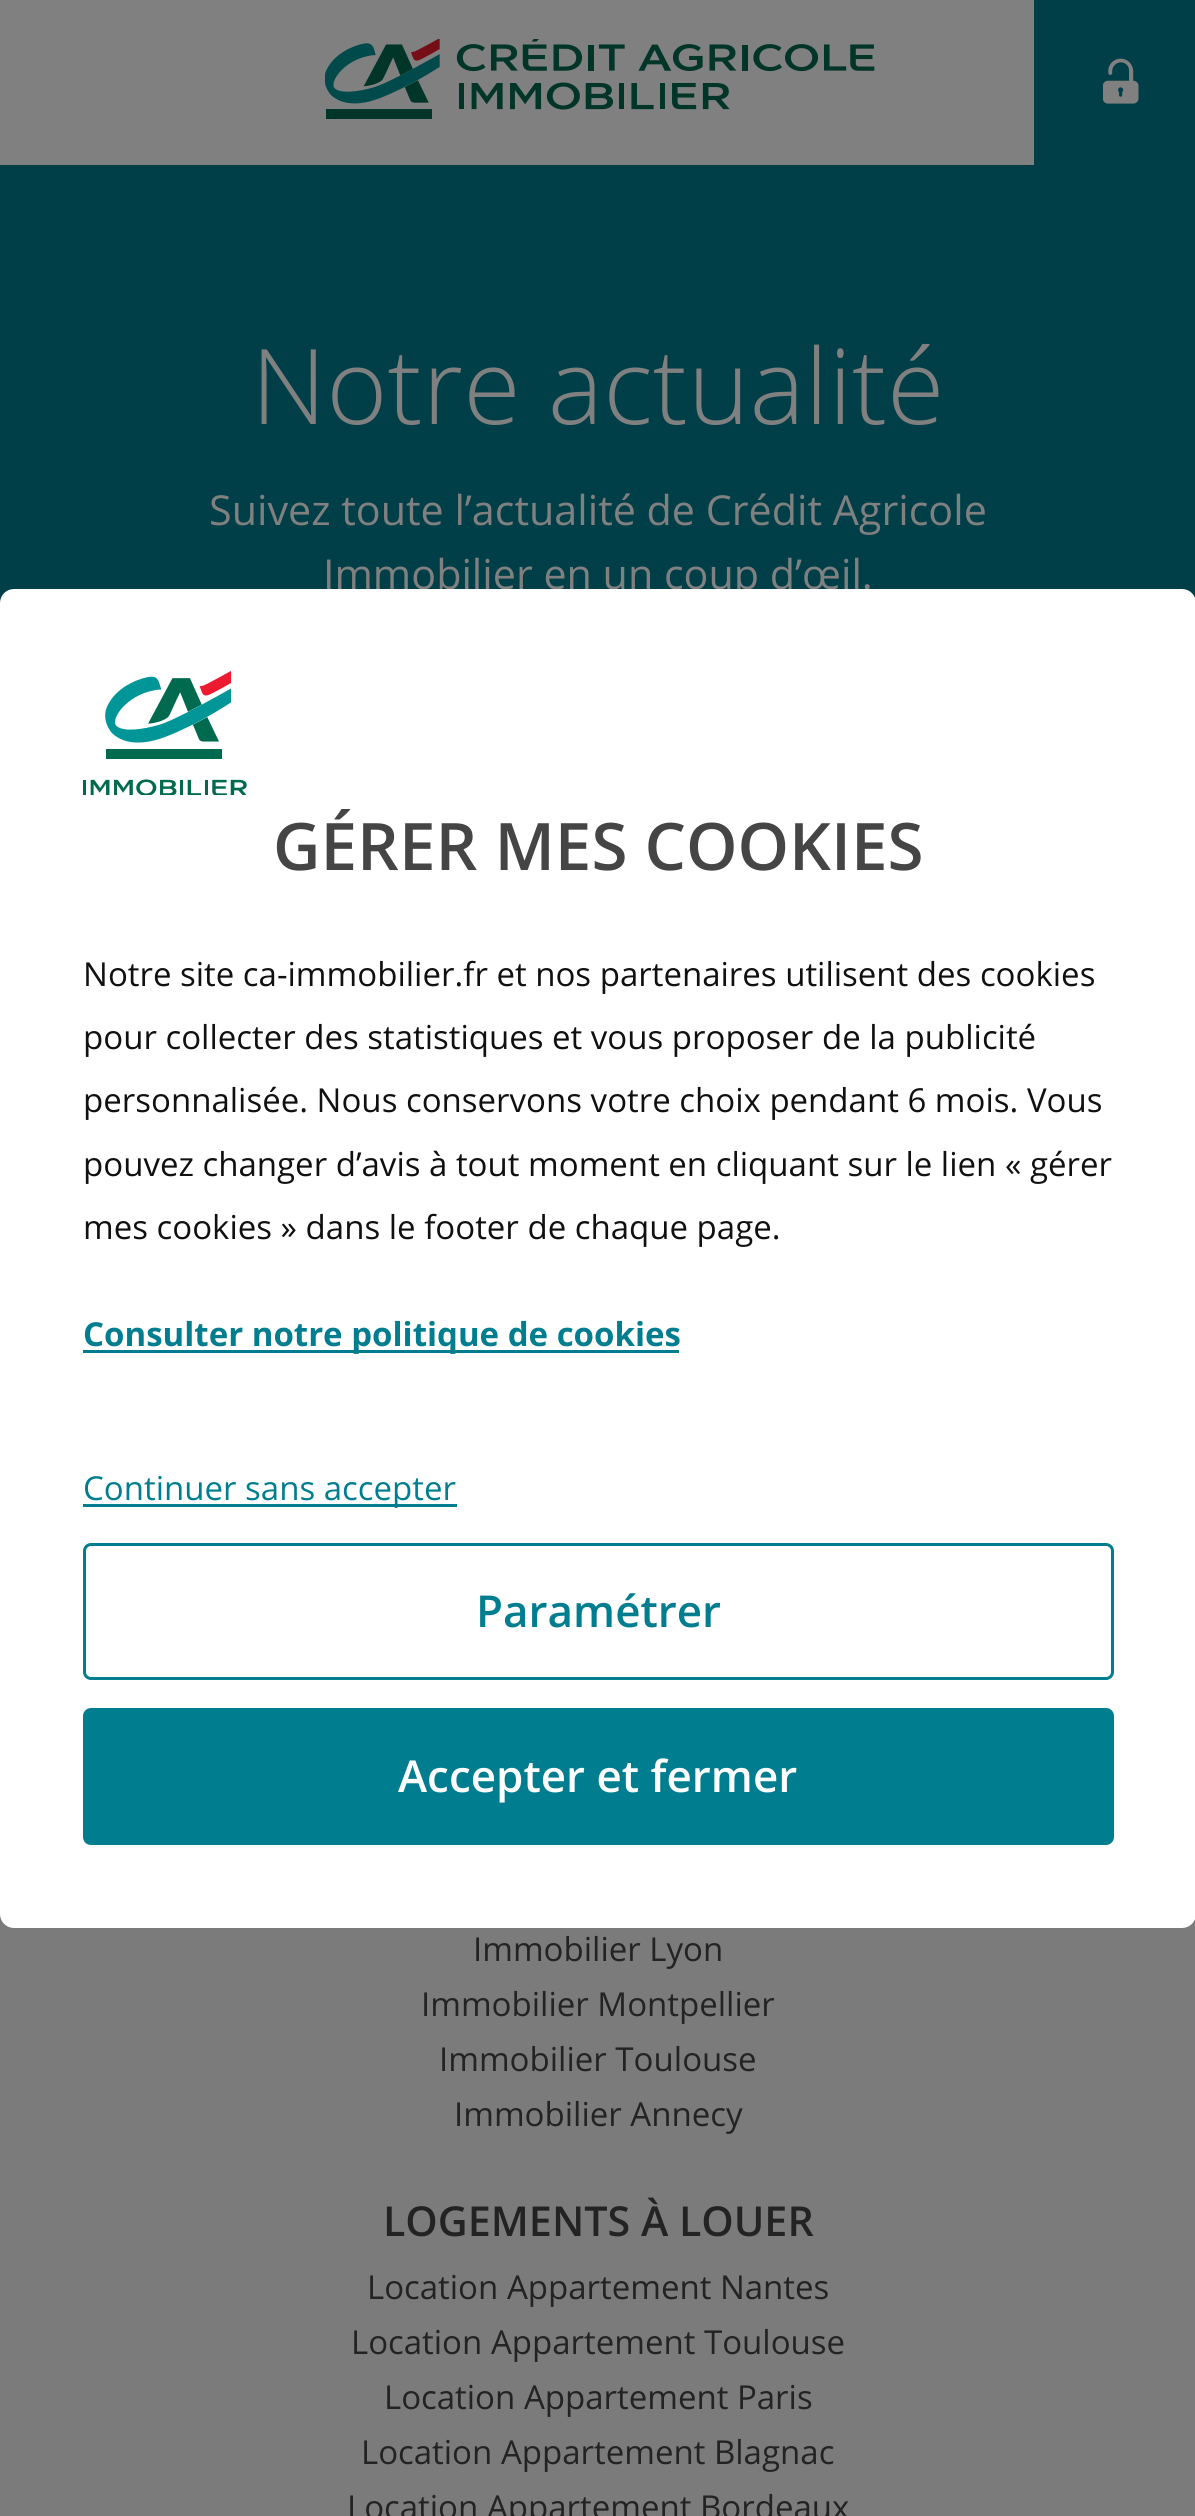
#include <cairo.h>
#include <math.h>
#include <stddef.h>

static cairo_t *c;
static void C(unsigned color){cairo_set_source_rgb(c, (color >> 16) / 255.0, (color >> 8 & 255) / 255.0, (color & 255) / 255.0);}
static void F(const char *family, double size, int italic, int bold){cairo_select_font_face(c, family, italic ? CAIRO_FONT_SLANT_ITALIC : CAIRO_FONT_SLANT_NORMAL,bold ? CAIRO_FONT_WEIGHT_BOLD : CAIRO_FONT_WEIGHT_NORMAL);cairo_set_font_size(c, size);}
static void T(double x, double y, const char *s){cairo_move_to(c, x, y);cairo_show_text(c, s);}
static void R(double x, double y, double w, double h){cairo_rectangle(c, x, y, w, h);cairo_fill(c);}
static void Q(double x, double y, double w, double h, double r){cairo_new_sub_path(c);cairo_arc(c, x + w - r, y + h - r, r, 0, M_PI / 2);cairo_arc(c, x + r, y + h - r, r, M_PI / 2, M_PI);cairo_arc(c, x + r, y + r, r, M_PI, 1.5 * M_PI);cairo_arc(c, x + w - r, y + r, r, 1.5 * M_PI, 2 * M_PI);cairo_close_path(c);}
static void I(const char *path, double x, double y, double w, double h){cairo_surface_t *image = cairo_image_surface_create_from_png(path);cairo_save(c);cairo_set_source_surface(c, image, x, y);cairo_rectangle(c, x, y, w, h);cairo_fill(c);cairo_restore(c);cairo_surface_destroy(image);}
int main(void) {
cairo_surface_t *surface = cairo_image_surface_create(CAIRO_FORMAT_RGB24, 1195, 2516);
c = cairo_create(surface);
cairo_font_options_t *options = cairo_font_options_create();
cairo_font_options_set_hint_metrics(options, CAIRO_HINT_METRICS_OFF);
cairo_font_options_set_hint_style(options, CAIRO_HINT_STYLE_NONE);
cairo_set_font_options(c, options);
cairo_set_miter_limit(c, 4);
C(0x808080);
cairo_paint(c);
I("1.png",325,39,550,80);
C(0x003f48);
R(1034,0,161,165);
I("2.png",1103,58,36,46);
R(0,165,1195,438);
F("Open Sans Light",104.5,0,0);
C(0x808080);
T(251,424,"Notre actualité");
F("Open Sans",41.25,0,0);
T(209,525,"Suivez toute l’actualité de Crédit Agricole");
T(323,589,"Immobilier en un coup d’œil.");
C(0x7b7b7b);
R(0,1914,1195,602);
C(0xffffff);
Q(0,589,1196,1339,14);
cairo_fill(c);
I("3.png",83,671,164,124);
F("Open Sans SemiBold",65.5,0,0);
C(0x454545);
T(273,870,"GÉRER MES COOKIES");
F("Open Sans",33,0,0);
C(0x101010);
T(83,986,"Notre site ca-immobilier.fr et nos partenaires utilisent des cookies");
T(83,1049,"pour collecter des statistiques et vous proposer de la publicité");
T(83,1112,"personnalisée. Nous conservons votre choix pendant 6 mois. Vous");
T(83,1176,"pouvez changer d’avis à tout moment en cliquant sur le lien « gérer");
T(83,1239,"mes cookies » dans le footer de chaque page.");
C(0x007d8f);
R(83,1350,596,3);
F("Open Sans",33,0,1);
T(83,1346,"Consulter notre politique de cookies");
R(83,1504,374,3);
F("Open Sans",33,0,0);
T(83,1500,"Continuer sans accepter");
Q(84.5,1544.5,1028,134,6.5);
cairo_set_line_width(c,3);
cairo_stroke(c);
F("Open Sans SemiBold",44,0,0);
T(476,1627,"Paramétrer");
Q(84.5,1709.5,1028,134,6.5);
cairo_fill_preserve(c);
cairo_stroke(c);
C(0xffffff);
T(398,1792,"Accepter et fermer");
F("Open Sans",33,0,0);
C(0x232323);
T(473,1961,"Immobilier Lyon");
T(421,2016,"Immobilier Montpellier");
T(439,2071,"Immobilier Toulouse");
T(454,2126,"Immobilier Annecy");
F("Open Sans SemiBold",41.25,0,0);
T(383,2236,"LOGEMENTS À LOUER");
F("Open Sans",33,0,0);
T(367,2299,"Location Appartement Nantes");
T(351,2354,"Location Appartement Toulouse");
T(384,2409,"Location Appartement Paris");
T(361,2464,"Location Appartement Blagnac");
T(347,2519,"Location Appartement Bordeaux");
cairo_surface_write_to_png(surface, "o.png");
cairo_font_options_destroy(options);
cairo_destroy(c);
cairo_surface_destroy(surface);
return 0;
}
